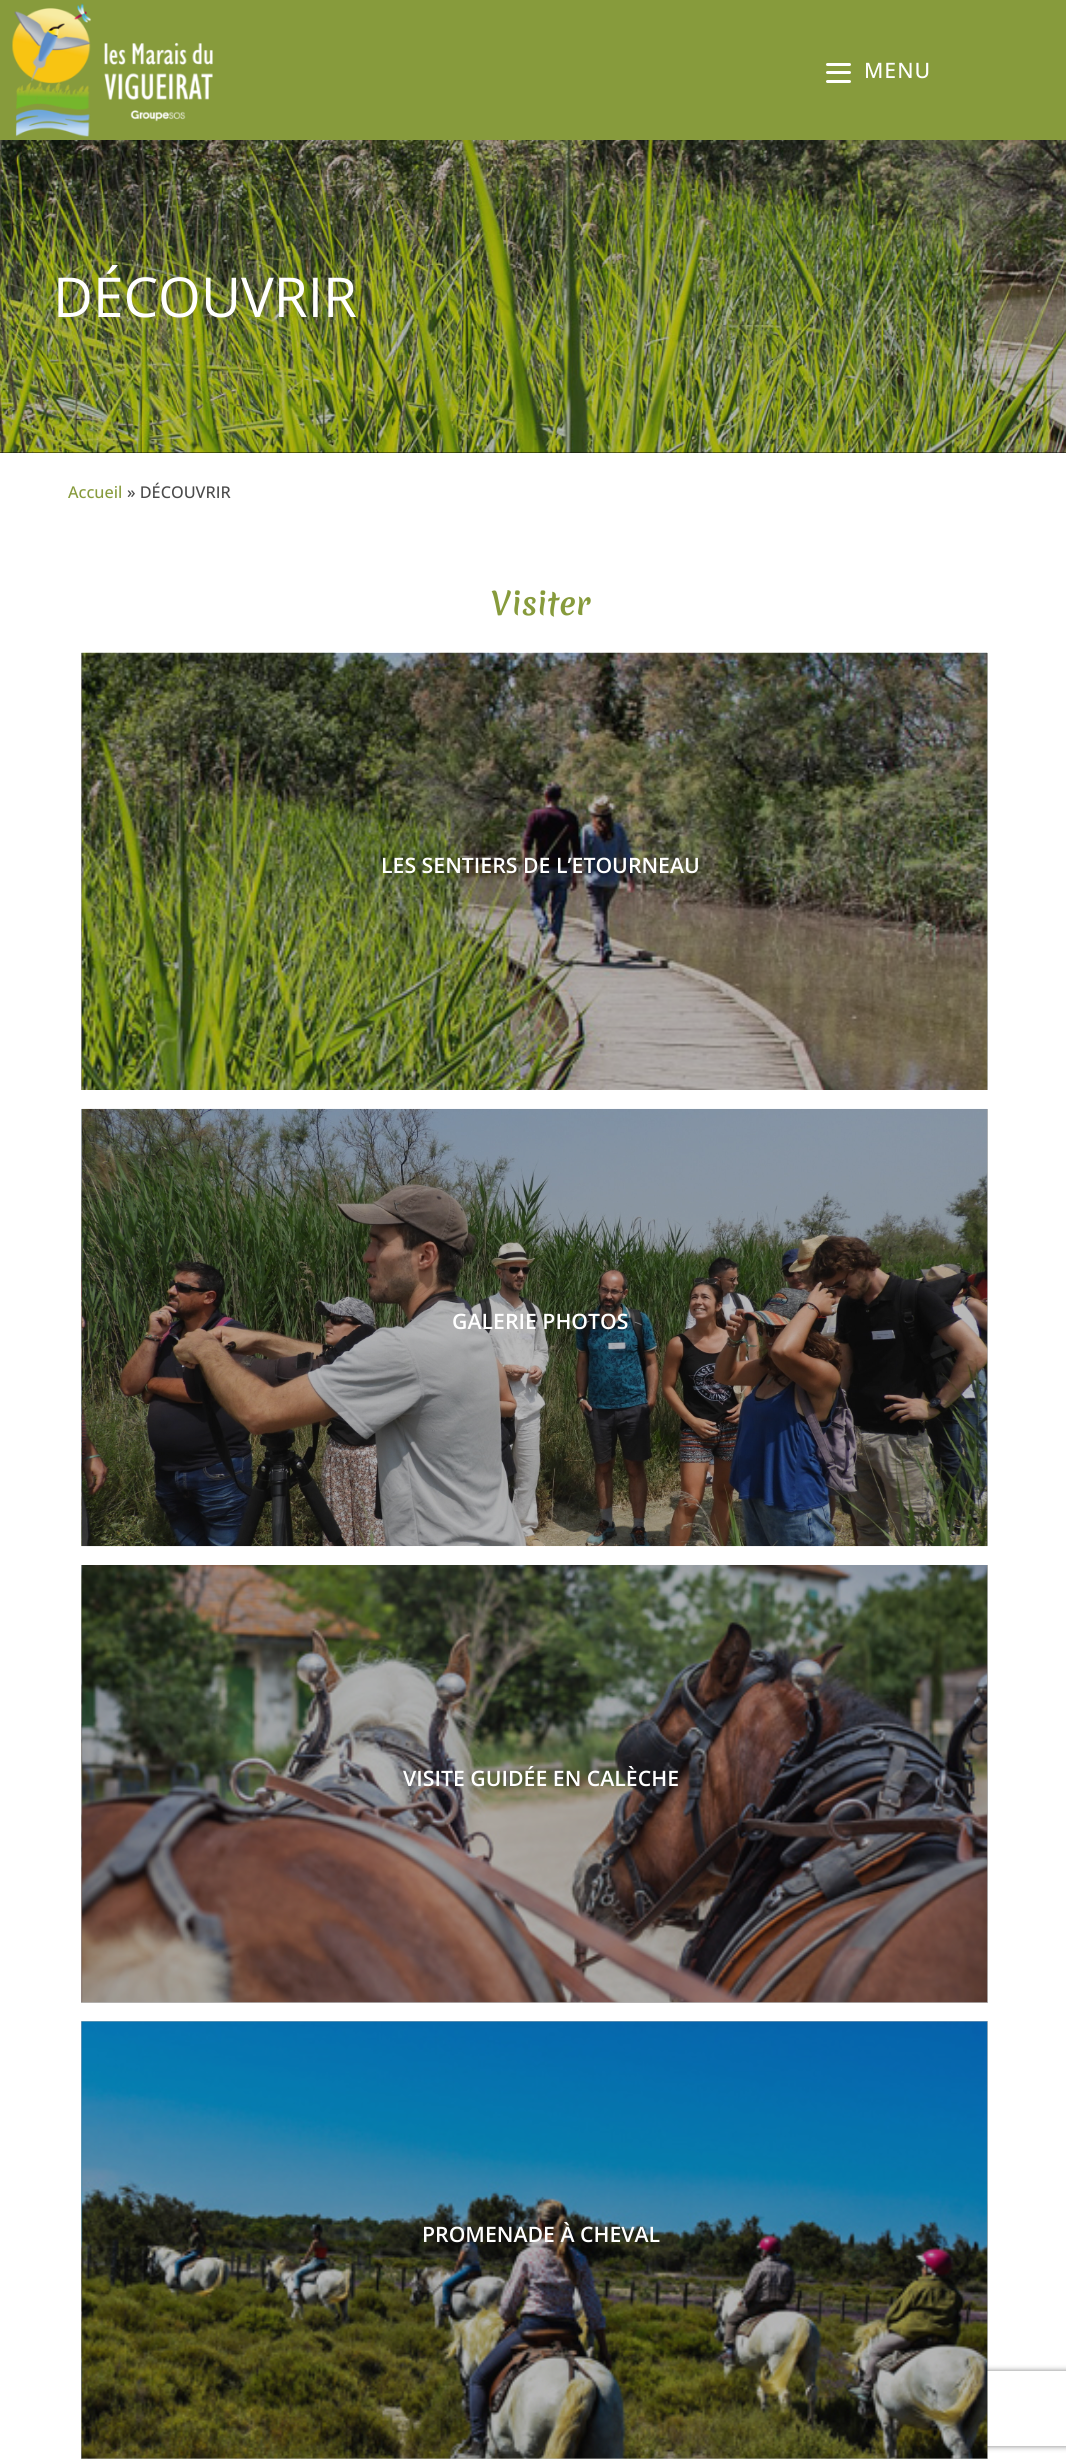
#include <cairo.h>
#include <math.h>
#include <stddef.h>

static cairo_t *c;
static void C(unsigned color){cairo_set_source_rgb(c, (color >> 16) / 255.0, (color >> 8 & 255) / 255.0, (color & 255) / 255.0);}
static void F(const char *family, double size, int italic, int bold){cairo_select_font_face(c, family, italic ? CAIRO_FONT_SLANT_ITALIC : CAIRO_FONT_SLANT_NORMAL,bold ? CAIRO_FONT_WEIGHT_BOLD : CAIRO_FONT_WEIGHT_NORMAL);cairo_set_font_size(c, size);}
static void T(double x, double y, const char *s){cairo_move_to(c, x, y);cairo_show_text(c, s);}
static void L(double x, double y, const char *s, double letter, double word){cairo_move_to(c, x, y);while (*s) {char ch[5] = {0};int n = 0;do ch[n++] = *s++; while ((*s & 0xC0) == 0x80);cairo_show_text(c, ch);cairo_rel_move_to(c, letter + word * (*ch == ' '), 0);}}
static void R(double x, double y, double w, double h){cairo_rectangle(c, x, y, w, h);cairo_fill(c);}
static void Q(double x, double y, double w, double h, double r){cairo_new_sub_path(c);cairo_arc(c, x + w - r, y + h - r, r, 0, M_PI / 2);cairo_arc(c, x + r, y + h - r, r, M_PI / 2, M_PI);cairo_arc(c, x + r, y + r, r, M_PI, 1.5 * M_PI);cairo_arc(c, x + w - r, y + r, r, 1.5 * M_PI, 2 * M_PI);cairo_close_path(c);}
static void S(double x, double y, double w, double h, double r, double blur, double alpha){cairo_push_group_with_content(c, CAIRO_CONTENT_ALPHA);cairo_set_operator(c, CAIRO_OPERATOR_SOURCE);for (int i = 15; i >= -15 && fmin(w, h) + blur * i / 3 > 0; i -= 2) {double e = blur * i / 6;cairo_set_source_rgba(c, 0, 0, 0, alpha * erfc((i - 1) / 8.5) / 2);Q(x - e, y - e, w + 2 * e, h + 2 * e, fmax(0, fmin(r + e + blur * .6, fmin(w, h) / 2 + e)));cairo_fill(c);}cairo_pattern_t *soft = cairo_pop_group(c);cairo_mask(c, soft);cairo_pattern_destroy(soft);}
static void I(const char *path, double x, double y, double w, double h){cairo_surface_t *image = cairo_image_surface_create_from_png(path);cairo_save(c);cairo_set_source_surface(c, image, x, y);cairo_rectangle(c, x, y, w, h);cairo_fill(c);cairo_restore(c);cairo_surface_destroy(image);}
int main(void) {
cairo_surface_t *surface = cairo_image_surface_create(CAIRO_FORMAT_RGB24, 1066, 2463);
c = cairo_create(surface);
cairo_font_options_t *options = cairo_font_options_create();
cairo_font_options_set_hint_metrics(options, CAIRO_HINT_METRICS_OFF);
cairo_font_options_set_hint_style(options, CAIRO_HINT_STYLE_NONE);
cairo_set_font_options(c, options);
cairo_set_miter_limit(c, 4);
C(0xffffff);
cairo_paint(c);
C(0xb8b8b8);
R(81,1565,907,438);
R(81,1109,907,437);
R(81,653,907,437);
C(0x879b3c);
R(0,0,1066,140);
I("1.png",12,3,201,134);
C(0xffffff);
Q(826,63,25,3,1.5);
cairo_fill(c);
Q(826,71,25,3,1.5);
cairo_fill(c);
Q(826,80,25,3,1.5);
cairo_fill(c);
F("Open Sans Medium",21.25,0,0);
L(864,78,"MENU",1,0);
C(0x0a0a0a);
R(0,452,1066,1);
I("2.png",0,140,1066,313);
F("Open Sans",55,0,0);
C(0xffffff);
T(53,317,"DÉCOUVRIR");
F("Open Sans Medium",16.25,0,0);
C(0x879b3c);
T(68,498,"Accueil");
C(0x4a4a4a);
T(127,498,"» DÉCOUVRIR");
F("Merienda SemiBold",31,0,0);
C(0x879b3c);
T(491,615,"Visiter");
I("3.png",81,652,907,438);
F("Open Sans SemiBold",21.25,0,0);
C(0xffffff);
T(381,873,"LES SENTIERS DE L’ETOURNEAU");
I("4.png",81,1108,907,439);
T(452,1329,"GALERIE PHOTOS");
I("5.png",81,1565,907,438);
T(403,1786,"VISITE GUIDÉE EN CALÈCHE");
cairo_save(c);
cairo_set_fill_rule(c,CAIRO_FILL_RULE_EVEN_ODD);
cairo_new_path(c);
cairo_move_to(c,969,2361);
cairo_line_to(c,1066,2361);
cairo_line_to(c,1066,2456);
cairo_line_to(c,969,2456);
cairo_close_path(c);
cairo_move_to(c,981.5,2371);
cairo_line_to(c,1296.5,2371);
cairo_curve_to(c,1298,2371,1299,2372,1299,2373.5);
cairo_line_to(c,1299,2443.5);
cairo_curve_to(c,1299,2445,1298,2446,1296.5,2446);
cairo_line_to(c,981.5,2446);
cairo_curve_to(c,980,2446,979,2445,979,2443.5);
cairo_line_to(c,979,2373.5);
cairo_curve_to(c,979,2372,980,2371,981.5,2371);
cairo_close_path(c);
cairo_clip(c);
C(0x808080);
S(979,2371,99,75,2.5,3,1);
cairo_restore(c);
I("6.png",81,2021,907,438);
cairo_set_source_rgba(c,0.067,0.067,0.067,0.3);
R(81,2021,907,438);
C(0xffffff);
T(422,2242,"PROMENADE À CHEVAL");
cairo_surface_write_to_png(surface, "o.png");
cairo_font_options_destroy(options);
cairo_destroy(c);
cairo_surface_destroy(surface);
return 0;
}
